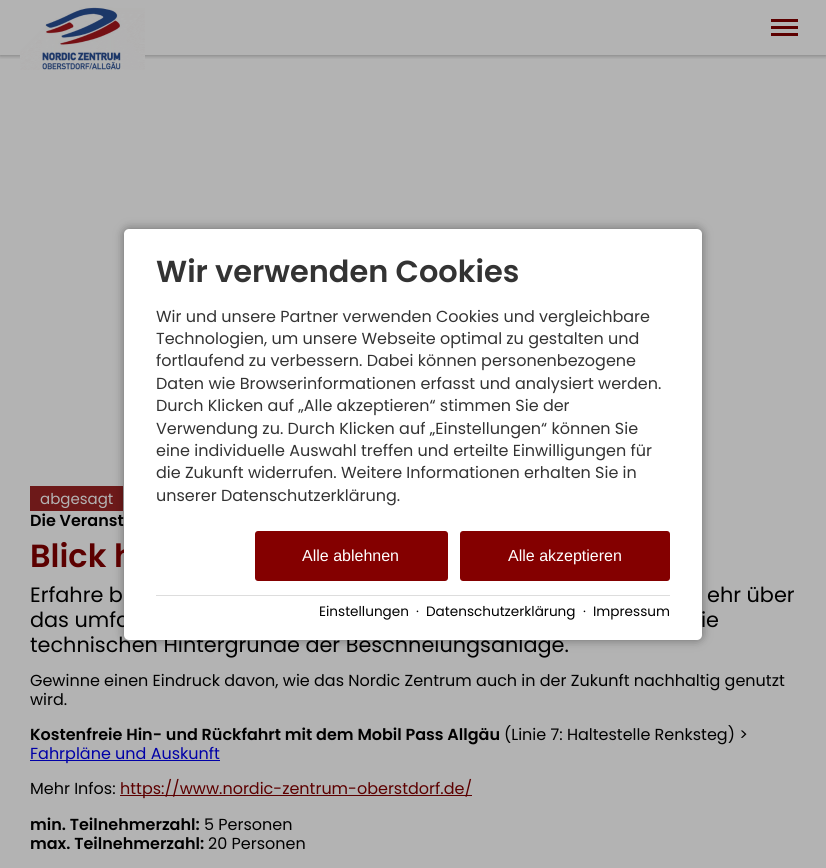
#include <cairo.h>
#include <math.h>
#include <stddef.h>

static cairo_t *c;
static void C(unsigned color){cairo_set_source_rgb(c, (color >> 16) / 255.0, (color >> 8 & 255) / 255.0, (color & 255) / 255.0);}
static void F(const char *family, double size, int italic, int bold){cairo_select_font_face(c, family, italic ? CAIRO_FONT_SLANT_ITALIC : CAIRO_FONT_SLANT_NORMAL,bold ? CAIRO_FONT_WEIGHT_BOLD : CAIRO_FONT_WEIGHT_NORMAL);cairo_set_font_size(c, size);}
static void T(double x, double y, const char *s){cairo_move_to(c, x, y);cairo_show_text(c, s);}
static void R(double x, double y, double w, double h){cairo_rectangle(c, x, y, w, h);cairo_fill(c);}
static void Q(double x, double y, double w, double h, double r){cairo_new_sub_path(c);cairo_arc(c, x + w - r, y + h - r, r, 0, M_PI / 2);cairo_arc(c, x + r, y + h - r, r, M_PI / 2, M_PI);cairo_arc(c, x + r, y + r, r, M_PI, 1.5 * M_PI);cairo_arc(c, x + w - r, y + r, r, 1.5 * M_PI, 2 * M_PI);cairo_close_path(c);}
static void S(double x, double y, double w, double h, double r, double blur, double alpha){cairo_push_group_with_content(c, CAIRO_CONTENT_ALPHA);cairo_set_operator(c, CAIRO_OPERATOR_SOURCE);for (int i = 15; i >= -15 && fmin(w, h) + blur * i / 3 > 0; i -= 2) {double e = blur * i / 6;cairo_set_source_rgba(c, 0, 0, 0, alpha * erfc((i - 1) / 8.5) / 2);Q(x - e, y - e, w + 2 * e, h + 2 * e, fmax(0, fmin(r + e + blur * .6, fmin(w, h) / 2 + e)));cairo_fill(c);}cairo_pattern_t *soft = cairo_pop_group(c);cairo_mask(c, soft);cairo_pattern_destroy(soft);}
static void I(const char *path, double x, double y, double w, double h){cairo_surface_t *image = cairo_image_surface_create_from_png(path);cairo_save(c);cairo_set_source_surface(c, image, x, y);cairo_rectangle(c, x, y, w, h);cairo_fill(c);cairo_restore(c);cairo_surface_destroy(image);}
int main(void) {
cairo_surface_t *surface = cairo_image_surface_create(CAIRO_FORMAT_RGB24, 826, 868);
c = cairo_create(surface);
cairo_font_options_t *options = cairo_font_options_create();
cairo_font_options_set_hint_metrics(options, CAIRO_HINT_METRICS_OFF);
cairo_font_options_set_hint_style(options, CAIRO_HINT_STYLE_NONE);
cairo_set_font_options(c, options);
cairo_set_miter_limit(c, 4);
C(0xb3b3b3);
cairo_paint(c);
C(0x6d1919);
R(30,486,93,25);
C(0x000000);
S(124,229,578,411,5,5,.4);
F("Poppins SemiBold",32,0,0);
C(0x5c0000);
T(30,567,"Blick h");
F("Poppins",20.8,0,0);
C(0x000000);
T(30,627,"das umfa");
T(30,652,"technischen Hintergründe der Beschneiungsanlage.");
C(0xffffff);
Q(124,229,578,411,5);
cairo_fill(c);
F("Poppins SemiBold",30.4,0,0);
C(0x333333);
T(156,282,"Wir verwenden Cookies");
F("Poppins",16,0,0);
T(156,322,"Wir und unsere Partner verwenden Cookies und vergleichbare");
T(156,344,"Technologien, um unsere Webseite optimal zu gestalten und");
T(156,366,"fortlaufend zu verbessern. Dabei können personenbezogene");
T(156,389,"Daten wie Browserinformationen erfasst und analysiert werden.");
T(156,411,"Durch Klicken auf „Alle akzeptieren“ stimmen Sie der");
T(156,434,"Verwendung zu. Durch Klicken auf „Einstellungen“ können Sie");
T(156,456,"eine individuelle Auswahl treffen und erteilte Einwilligungen für");
T(156,478,"die Zukunft widerrufen. Weitere Informationen erhalten Sie in");
T(156,501,"unserer Datenschutzerklärung.");
C(0x840000);
Q(255,531,193,50,3);
cairo_fill(c);
F("Liberation Sans",16,0,0);
C(0xffffff);
T(302,561,"Alle ablehnen");
C(0x840000);
Q(460,531,210,50,3);
cairo_fill(c);
C(0xffffff);
T(508,561,"Alle akzeptieren");
C(0xdddddd);
R(156,595,514,1);
F("Poppins",13.6,0,0);
C(0x000000);
T(319,616,"Einstellungen");
T(416,616,"·");
T(426,616,"Datenschutzerklärung");
T(583,616,"·");
T(593,616,"Impressum");
cairo_save(c);
cairo_rectangle(c,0,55,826,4);
cairo_clip(c);
C(0x000000);
S(0,0,826,55,0,2.5,.4);
cairo_restore(c);
I("1.png",20,7,125,63);
C(0x5c0000);
R(771,19,27,3);
R(771,26,27,3);
R(771,33,27,3);
F("Poppins",15,0,0);
C(0xb3b3b3);
T(40,504,"abgesagt");
F("Poppins SemiBold",16,0,0);
C(0x000000);
T(30,526,"Die Veranst");
F("Poppins",20.8,0,0);
T(30,602,"Erfahre b");
T(707,602,"ehr über");
T(701,627,"ie");
F("Poppins",16,0,0);
T(30,686,"Gewinne einen Eindruck davon, wie das Nordic Zentrum auch in der Zukunft nachhaltig genutzt");
T(30,705,"wird.");
F("Poppins SemiBold",16,0,0);
T(30,740,"Kostenfreie Hin- und Rückfahrt mit dem Mobil Pass Allgäu");
F("Poppins",16,0,0);
T(504,740,"(Linie 7: Haltestelle Renksteg) >");
C(0x0000a7);
R(30,760,190,1);
T(30,759,"Fahrpläne und Auskunft");
C(0x000000);
T(30,794,"Mehr Infos:");
C(0x5c0000);
R(120,795,352,1);
T(120,794,"https://www.nordic-zentrum-oberstdorf.de/");
F("Poppins SemiBold",16,0,0);
C(0x000000);
T(30,830,"min. Teilnehmerzahl:");
F("Poppins",16,0,0);
T(204,830,"5 Personen");
F("Poppins SemiBold",16,0,0);
T(30,849,"max. Teilnehmerzahl:");
F("Poppins",16,0,0);
T(208,849,"20 Personen");
cairo_surface_write_to_png(surface, "o.png");
cairo_font_options_destroy(options);
cairo_destroy(c);
cairo_surface_destroy(surface);
return 0;
}
